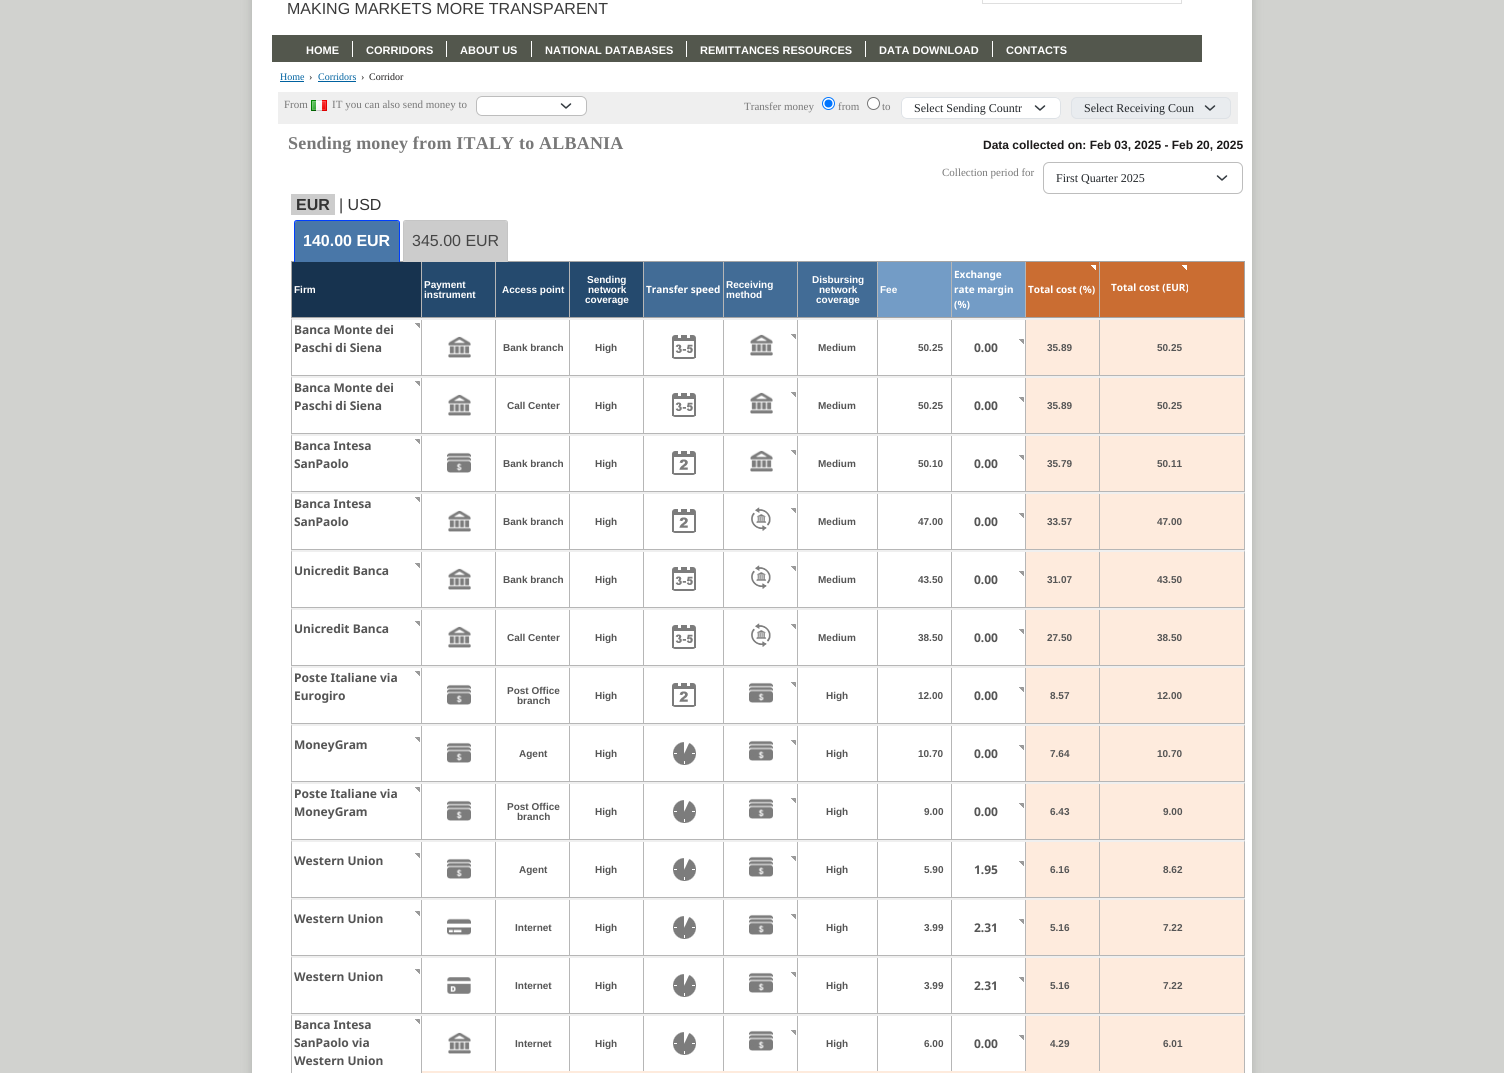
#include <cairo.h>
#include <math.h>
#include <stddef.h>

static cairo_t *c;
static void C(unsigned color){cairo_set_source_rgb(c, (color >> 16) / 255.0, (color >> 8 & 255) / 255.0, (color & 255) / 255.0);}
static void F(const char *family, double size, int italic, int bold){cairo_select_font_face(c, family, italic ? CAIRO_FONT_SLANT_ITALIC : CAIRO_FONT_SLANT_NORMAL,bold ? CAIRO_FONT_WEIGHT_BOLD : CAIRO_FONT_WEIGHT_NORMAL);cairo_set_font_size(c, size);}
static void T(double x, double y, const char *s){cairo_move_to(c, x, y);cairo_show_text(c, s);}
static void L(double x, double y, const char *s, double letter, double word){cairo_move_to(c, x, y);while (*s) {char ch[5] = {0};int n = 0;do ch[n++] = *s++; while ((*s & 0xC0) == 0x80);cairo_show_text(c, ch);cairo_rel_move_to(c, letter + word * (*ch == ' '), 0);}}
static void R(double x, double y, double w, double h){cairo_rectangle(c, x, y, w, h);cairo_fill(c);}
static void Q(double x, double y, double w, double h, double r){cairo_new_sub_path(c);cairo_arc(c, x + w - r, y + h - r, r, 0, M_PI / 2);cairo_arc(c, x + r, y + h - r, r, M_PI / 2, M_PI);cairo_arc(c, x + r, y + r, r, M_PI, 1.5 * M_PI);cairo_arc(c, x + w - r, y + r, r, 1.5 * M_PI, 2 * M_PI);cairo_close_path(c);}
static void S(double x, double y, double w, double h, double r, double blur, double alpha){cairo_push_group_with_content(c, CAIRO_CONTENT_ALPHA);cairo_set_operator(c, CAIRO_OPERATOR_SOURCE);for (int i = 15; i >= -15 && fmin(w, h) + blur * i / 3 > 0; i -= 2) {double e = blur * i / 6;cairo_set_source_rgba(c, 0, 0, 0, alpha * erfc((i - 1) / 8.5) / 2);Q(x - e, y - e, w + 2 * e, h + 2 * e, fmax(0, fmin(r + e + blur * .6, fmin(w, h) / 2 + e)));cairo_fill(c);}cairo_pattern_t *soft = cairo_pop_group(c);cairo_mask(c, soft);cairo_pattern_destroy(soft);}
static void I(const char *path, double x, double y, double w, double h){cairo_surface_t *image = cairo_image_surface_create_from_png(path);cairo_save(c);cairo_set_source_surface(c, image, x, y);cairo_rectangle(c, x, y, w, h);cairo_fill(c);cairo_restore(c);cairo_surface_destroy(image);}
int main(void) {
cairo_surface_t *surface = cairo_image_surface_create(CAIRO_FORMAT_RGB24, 1504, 1073);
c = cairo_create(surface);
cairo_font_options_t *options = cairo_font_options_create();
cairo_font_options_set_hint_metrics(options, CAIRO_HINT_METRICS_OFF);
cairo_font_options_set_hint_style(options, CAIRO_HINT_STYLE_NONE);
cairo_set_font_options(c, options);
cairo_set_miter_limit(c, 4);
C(0xd1d2cf);
cairo_paint(c);
C(0xafb1ae);
S(252,-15,1000,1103,0,5,1);
C(0xffffff);
R(252,0,1000,1073);
cairo_rectangle(c,982.5,-.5,199,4);
C(0xdfdfdf);
cairo_set_line_width(c,1);
cairo_stroke(c);
F("Liberation Sans",16,0,0);
C(0x3a3a3a);
T(287,14,"MAKING MARKETS MORE TRANSPARENT");
C(0x53574d);
R(272,35,930,27);
C(0xffffff);
R(352,41,1,16);
F("Liberation Sans",11,0,1);
T(306,54,"HOME");
R(446,41,1,16);
T(366,54,"CORRIDORS");
R(531,41,1,16);
T(460,54,"ABOUT US");
R(686,41,1,16);
T(545,54,"NATIONAL DATABASES");
R(865,41,1,16);
T(700,54,"REMITTANCES RESOURCES");
R(992,41,1,16);
T(879,54,"DATA DOWNLOAD");
T(1006,54,"CONTACTS");
F("Liberation Serif",10,0,0);
C(0x0062a0);
T(280,80,"Home");
R(280,81,24,1);
C(0x1c1a1a);
T(309,80,"›");
C(0x0062a0);
T(318,80,"Corridors");
R(318,81,38,1);
C(0x1c1a1a);
T(361,80,"›");
T(369,80,"Corridor");
C(0xefefef);
R(278,92,960,32);
F("Liberation Serif",11,0,0);
C(0x787878);
T(284,108,"From");
I("1.png",311,100,16,11);
T(332,108,"IT you can also send money to");
C(0xffffff);
Q(476,96,111,20,6);
cairo_fill(c);
cairo_new_path(c);
cairo_move_to(c,561.5,104);
cairo_line_to(c,566,108);
cairo_line_to(c,570.5,104);
C(0x343a40);
cairo_set_line_width(c,1.5);
cairo_set_line_cap(c,CAIRO_LINE_CAP_ROUND);
cairo_set_line_join(c,CAIRO_LINE_JOIN_ROUND);
cairo_stroke(c);
Q(476.5,96.5,110,19,5.5);
C(0xbdbdbd);
cairo_set_line_width(c,1);
cairo_set_line_cap(c,CAIRO_LINE_CAP_BUTT);
cairo_set_line_join(c,CAIRO_LINE_JOIN_MITER);
cairo_stroke(c);
C(0x787878);
T(744,110,"Transfer money");
C(0xffffff);
cairo_new_path(c);
cairo_arc(c,828.5,103.5,6,0,2 * M_PI);
cairo_fill_preserve(c);
C(0x0075ff);
cairo_stroke(c);
cairo_arc(c,828.5,103.5,4,0,2 * M_PI);
cairo_fill(c);
C(0x787878);
T(838,110,"from");
C(0xffffff);
cairo_new_path(c);
cairo_arc(c,873.5,103.5,6,0,2 * M_PI);
cairo_fill_preserve(c);
C(0x767676);
cairo_stroke(c);
C(0x787878);
T(882,110,"to");
C(0xffffff);
Q(901,97,160,22,6);
cairo_fill(c);
cairo_new_path(c);
cairo_move_to(c,1035.5,106);
cairo_line_to(c,1040,110);
cairo_line_to(c,1044.5,106);
C(0x343a40);
cairo_set_line_width(c,1.5);
cairo_set_line_cap(c,CAIRO_LINE_CAP_ROUND);
cairo_set_line_join(c,CAIRO_LINE_JOIN_ROUND);
cairo_stroke(c);
Q(901.5,97.5,159,21,5.5);
C(0xdee2e6);
cairo_set_line_width(c,1);
cairo_set_line_cap(c,CAIRO_LINE_CAP_BUTT);
cairo_set_line_join(c,CAIRO_LINE_JOIN_MITER);
cairo_stroke(c);
F("Liberation Serif",12,0,0);
C(0x212529);
T(914,112,"Select Sending Countr");
C(0xe9ecef);
Q(1071,97,160,22,6);
cairo_fill(c);
cairo_new_path(c);
cairo_move_to(c,1205.5,106);
cairo_line_to(c,1210,110);
cairo_line_to(c,1214.5,106);
C(0x343a40);
cairo_set_line_width(c,1.5);
cairo_set_line_cap(c,CAIRO_LINE_CAP_ROUND);
cairo_set_line_join(c,CAIRO_LINE_JOIN_ROUND);
cairo_stroke(c);
Q(1071.5,97.5,159,21,5.5);
C(0xdee2e6);
cairo_set_line_width(c,1);
cairo_set_line_cap(c,CAIRO_LINE_CAP_BUTT);
cairo_set_line_join(c,CAIRO_LINE_JOIN_MITER);
cairo_stroke(c);
C(0x212529);
T(1084,112,"Select Receiving Coun");
F("Liberation Serif",18,0,1);
C(0x787878);
L(288,149,"Sending money from ITALY to ALBANIA",.2,0);
F("Liberation Sans",12,0,1);
C(0x1c1a1a);
T(983,149,"Data collected on: Feb 03, 2025 - Feb 20, 2025");
F("Liberation Serif",11,0,0);
C(0x787878);
T(942,176,"Collection period for");
cairo_new_path(c);
cairo_move_to(c,1217.5,176);
cairo_line_to(c,1222,180);
cairo_line_to(c,1226.5,176);
C(0x343a40);
cairo_set_line_width(c,1.5);
cairo_set_line_cap(c,CAIRO_LINE_CAP_ROUND);
cairo_set_line_join(c,CAIRO_LINE_JOIN_ROUND);
cairo_stroke(c);
Q(1043.5,162.5,199,31,5.5);
C(0xbdbdbd);
cairo_set_line_width(c,1);
cairo_set_line_cap(c,CAIRO_LINE_CAP_BUTT);
cairo_set_line_join(c,CAIRO_LINE_JOIN_MITER);
cairo_stroke(c);
F("Liberation Serif",12,0,0);
C(0x212529);
T(1056,182,"First Quarter 2025");
C(0xcccccc);
R(291,194,44,21);
F("Liberation Sans",16,0,1);
C(0x333333);
T(296,210,"EUR");
F("Liberation Sans",16,0,0);
T(339,210,"| USD");
C(0xca6d32);
R(1026,262,218,55);
cairo_rectangle(c,291.5,261.5,953,56);
C(0xa5a5a5);
cairo_stroke(c);
C(0x4977a8);
cairo_new_path(c);
cairo_move_to(c,297,221);
cairo_line_to(c,397,221);
cairo_curve_to(c,398,221,399,222,399,223);
cairo_line_to(c,399,264);
cairo_line_to(c,295,264);
cairo_line_to(c,295,223);
cairo_curve_to(c,295,222,296,221,297,221);
cairo_close_path(c);
cairo_fill(c);
C(0x003eff);
cairo_set_fill_rule(c,CAIRO_FILL_RULE_EVEN_ODD);
cairo_new_path(c);
cairo_move_to(c,297,220);
cairo_line_to(c,397,220);
cairo_curve_to(c,399,220,400,221,400,223);
cairo_line_to(c,400,264);
cairo_line_to(c,294,264);
cairo_line_to(c,294,223);
cairo_curve_to(c,294,221,295,220,297,220);
cairo_close_path(c);
cairo_move_to(c,297,221);
cairo_line_to(c,397,221);
cairo_curve_to(c,398,221,399,222,399,223);
cairo_line_to(c,399,264);
cairo_line_to(c,295,264);
cairo_line_to(c,295,223);
cairo_curve_to(c,295,222,296,221,297,221);
cairo_close_path(c);
cairo_fill(c);
F("Liberation Sans",16,0,1);
C(0xffffff);
T(303,246,"140.00 EUR");
C(0xcccccc);
cairo_new_path(c);
cairo_move_to(c,406,221);
cairo_line_to(c,505,221);
cairo_curve_to(c,506,221,507,222,507,223);
cairo_line_to(c,507,264);
cairo_line_to(c,404,264);
cairo_line_to(c,404,223);
cairo_curve_to(c,404,222,405,221,406,221);
cairo_close_path(c);
cairo_fill(c);
C(0xc5c5c5);
cairo_new_path(c);
cairo_move_to(c,406,220);
cairo_line_to(c,505,220);
cairo_curve_to(c,507,220,508,221,508,223);
cairo_line_to(c,508,264);
cairo_line_to(c,403,264);
cairo_line_to(c,403,223);
cairo_curve_to(c,403,221,404,220,406,220);
cairo_close_path(c);
cairo_move_to(c,406,221);
cairo_line_to(c,505,221);
cairo_curve_to(c,506,221,507,222,507,223);
cairo_line_to(c,507,264);
cairo_line_to(c,404,264);
cairo_line_to(c,404,223);
cairo_curve_to(c,404,222,405,221,406,221);
cairo_close_path(c);
cairo_fill(c);
F("Liberation Sans",16,0,0);
C(0x454545);
T(412,246,"345.00 EUR");
C(0x17334f);
R(292,262,129,55);
C(0xb6b6b6);
R(421,262,1,55);
F("Liberation Sans",10,0,1);
C(0xffffff);
T(294,293,"Firm");
C(0x254a6e);
R(422,262,73,55);
C(0xb6b6b6);
R(495,262,1,55);
C(0xffffff);
T(424,288,"Payment");
T(424,298,"instrument");
C(0x254a6e);
R(496,262,73,55);
C(0xb6b6b6);
R(569,262,1,55);
C(0xffffff);
T(502,293,"Access point");
C(0x254a6e);
R(570,262,73,55);
C(0xb6b6b6);
R(643,262,1,55);
C(0xffffff);
T(587,283,"Sending");
T(588,293,"network");
T(585,303,"coverage");
C(0x426c96);
R(644,262,79,55);
C(0xb6b6b6);
R(723,262,1,55);
F("Noto Sans",10,0,1);
C(0xffffff);
T(646,293,"Transfer speed");
C(0x426c96);
R(724,262,73,55);
C(0xb6b6b6);
R(797,262,1,55);
F("Liberation Sans",10,0,1);
C(0xffffff);
T(726,288,"Receiving");
T(726,298,"method");
C(0x426c96);
R(798,262,79,55);
C(0xb6b6b6);
R(877,262,1,55);
C(0xffffff);
T(812,283,"Disbursing");
T(819,293,"network");
T(816,303,"coverage");
C(0x739cc6);
R(878,262,73,55);
C(0xb6b6b6);
R(951,262,1,55);
C(0xffffff);
T(880,293,"Fee");
C(0x739cc6);
R(952,262,73,55);
C(0xb6b6b6);
R(1025,262,1,55);
F("Noto Sans",10,0,1);
C(0xffffff);
T(954,278,"Exchange");
T(954,293,"rate margin");
T(954,308,"(%)");
I("2.png",1091,265,5,5);
C(0xb6b6b6);
R(1099,262,1,55);
C(0xffffff);
T(1028,293,"Total cost (%)");
I("2.png",1182,265,5,5);
T(1111,291,"Total cost (EUR)");
C(0xfeebdd);
R(1026,320,218,55);
C(0xefefef);
cairo_set_fill_rule(c,CAIRO_FILL_RULE_WINDING);
cairo_new_path(c);
cairo_move_to(c,291,318);
cairo_line_to(c,1245,318);
cairo_line_to(c,1244,320);
cairo_line_to(c,292,320);
cairo_close_path(c);
cairo_fill(c);
C(0xb6b6b6);
cairo_new_path(c);
cairo_move_to(c,1245,318);
cairo_line_to(c,1245,376);
cairo_line_to(c,1244,375);
cairo_line_to(c,1244,320);
cairo_close_path(c);
cairo_fill(c);
R(291,375,954,1);
cairo_new_path(c);
cairo_move_to(c,291,376);
cairo_line_to(c,291,318);
cairo_line_to(c,292,320);
cairo_line_to(c,292,375);
cairo_close_path(c);
cairo_fill(c);
R(421,320,1,55);
I("3.png",415,323,5,5);
F("Noto Sans",12,0,1);
C(0x555555);
T(294,334,"Banca Monte dei");
T(294,352,"Paschi di Siena");
C(0xb6b6b6);
R(495,320,1,55);
I("4.png",448,336,23,22);
R(569,320,1,55);
F("Liberation Sans",10,0,1);
C(0x555555);
T(503,351,"Bank branch");
C(0xb6b6b6);
R(643,320,1,55);
C(0x555555);
T(595,351,"High");
C(0xb6b6b6);
R(723,320,1,55);
I("5.png",672,335,24,24);
R(797,320,1,55);
I("3.png",791,334,5,5);
I("4.png",750,334,23,22);
R(877,320,1,55);
C(0x555555);
T(818,351,"Medium");
C(0xb6b6b6);
R(951,320,1,55);
C(0x555555);
T(918,351,"50.25");
C(0xb6b6b6);
R(1025,320,1,55);
I("3.png",1019,339,5,5);
F("Noto Sans",12,0,1);
C(0x555555);
T(974,352,"0.00");
C(0xb6b6b6);
R(1099,320,1,55);
F("Liberation Sans",10,0,1);
C(0x555555);
T(1047,351,"35.89");
T(1157,351,"50.25");
C(0xfeebdd);
R(1026,378,218,55);
C(0xefefef);
cairo_new_path(c);
cairo_move_to(c,291,376);
cairo_line_to(c,1245,376);
cairo_line_to(c,1244,378);
cairo_line_to(c,292,378);
cairo_close_path(c);
cairo_fill(c);
C(0xb6b6b6);
cairo_new_path(c);
cairo_move_to(c,1245,376);
cairo_line_to(c,1245,434);
cairo_line_to(c,1244,433);
cairo_line_to(c,1244,378);
cairo_close_path(c);
cairo_fill(c);
R(291,433,954,1);
cairo_new_path(c);
cairo_move_to(c,291,434);
cairo_line_to(c,291,376);
cairo_line_to(c,292,378);
cairo_line_to(c,292,433);
cairo_close_path(c);
cairo_fill(c);
R(421,378,1,55);
I("3.png",415,381,5,5);
F("Noto Sans",12,0,1);
C(0x555555);
T(294,392,"Banca Monte dei");
T(294,410,"Paschi di Siena");
C(0xb6b6b6);
R(495,378,1,55);
I("4.png",448,394,23,22);
R(569,378,1,55);
F("Liberation Sans",10,0,1);
C(0x555555);
T(507,409,"Call Center");
C(0xb6b6b6);
R(643,378,1,55);
C(0x555555);
T(595,409,"High");
C(0xb6b6b6);
R(723,378,1,55);
I("5.png",672,393,24,24);
R(797,378,1,55);
I("3.png",791,392,5,5);
I("4.png",750,392,23,22);
R(877,378,1,55);
C(0x555555);
T(818,409,"Medium");
C(0xb6b6b6);
R(951,378,1,55);
C(0x555555);
T(918,409,"50.25");
C(0xb6b6b6);
R(1025,378,1,55);
I("3.png",1019,397,5,5);
F("Noto Sans",12,0,1);
C(0x555555);
T(974,410,"0.00");
C(0xb6b6b6);
R(1099,378,1,55);
F("Liberation Sans",10,0,1);
C(0x555555);
T(1047,409,"35.89");
T(1157,409,"50.25");
C(0xfeebdd);
R(1026,436,218,55);
C(0xefefef);
cairo_new_path(c);
cairo_move_to(c,291,434);
cairo_line_to(c,1245,434);
cairo_line_to(c,1244,436);
cairo_line_to(c,292,436);
cairo_close_path(c);
cairo_fill(c);
C(0xb6b6b6);
cairo_new_path(c);
cairo_move_to(c,1245,434);
cairo_line_to(c,1245,492);
cairo_line_to(c,1244,491);
cairo_line_to(c,1244,436);
cairo_close_path(c);
cairo_fill(c);
R(291,491,954,1);
cairo_new_path(c);
cairo_move_to(c,291,492);
cairo_line_to(c,291,434);
cairo_line_to(c,292,436);
cairo_line_to(c,292,491);
cairo_close_path(c);
cairo_fill(c);
R(421,436,1,55);
I("3.png",415,439,5,5);
F("Noto Sans",12,0,1);
C(0x555555);
T(294,450,"Banca Intesa");
T(294,468,"SanPaolo");
C(0xb6b6b6);
R(495,436,1,55);
I("6.png",447,452,24,21);
R(569,436,1,55);
F("Liberation Sans",10,0,1);
C(0x555555);
T(503,467,"Bank branch");
C(0xb6b6b6);
R(643,436,1,55);
C(0x555555);
T(595,467,"High");
C(0xb6b6b6);
R(723,436,1,55);
I("7.png",672,451,24,24);
R(797,436,1,55);
I("3.png",791,450,5,5);
I("4.png",750,450,23,22);
R(877,436,1,55);
C(0x555555);
T(818,467,"Medium");
C(0xb6b6b6);
R(951,436,1,55);
C(0x555555);
T(918,467,"50.10");
C(0xb6b6b6);
R(1025,436,1,55);
I("3.png",1019,455,5,5);
F("Noto Sans",12,0,1);
C(0x555555);
T(974,468,"0.00");
C(0xb6b6b6);
R(1099,436,1,55);
F("Liberation Sans",10,0,1);
C(0x555555);
T(1047,467,"35.79");
T(1157,467,"50.11");
C(0xfeebdd);
R(1026,494,218,55);
C(0xefefef);
cairo_new_path(c);
cairo_move_to(c,291,492);
cairo_line_to(c,1245,492);
cairo_line_to(c,1244,494);
cairo_line_to(c,292,494);
cairo_close_path(c);
cairo_fill(c);
C(0xb6b6b6);
cairo_new_path(c);
cairo_move_to(c,1245,492);
cairo_line_to(c,1245,550);
cairo_line_to(c,1244,549);
cairo_line_to(c,1244,494);
cairo_close_path(c);
cairo_fill(c);
R(291,549,954,1);
cairo_new_path(c);
cairo_move_to(c,291,550);
cairo_line_to(c,291,492);
cairo_line_to(c,292,494);
cairo_line_to(c,292,549);
cairo_close_path(c);
cairo_fill(c);
R(421,494,1,55);
I("3.png",415,497,5,5);
F("Noto Sans",12,0,1);
C(0x555555);
T(294,508,"Banca Intesa");
T(294,526,"SanPaolo");
C(0xb6b6b6);
R(495,494,1,55);
I("4.png",448,510,23,22);
R(569,494,1,55);
F("Liberation Sans",10,0,1);
C(0x555555);
T(503,525,"Bank branch");
C(0xb6b6b6);
R(643,494,1,55);
C(0x555555);
T(595,525,"High");
C(0xb6b6b6);
R(723,494,1,55);
I("7.png",672,509,24,24);
R(797,494,1,55);
I("3.png",791,508,5,5);
I("8.png",751,507,20,24);
R(877,494,1,55);
C(0x555555);
T(818,525,"Medium");
C(0xb6b6b6);
R(951,494,1,55);
C(0x555555);
T(918,525,"47.00");
C(0xb6b6b6);
R(1025,494,1,55);
I("3.png",1019,513,5,5);
F("Noto Sans",12,0,1);
C(0x555555);
T(974,526,"0.00");
C(0xb6b6b6);
R(1099,494,1,55);
F("Liberation Sans",10,0,1);
C(0x555555);
T(1047,525,"33.57");
T(1157,525,"47.00");
C(0xfeebdd);
R(1026,552,218,55);
C(0xefefef);
cairo_new_path(c);
cairo_move_to(c,291,550);
cairo_line_to(c,1245,550);
cairo_line_to(c,1244,552);
cairo_line_to(c,292,552);
cairo_close_path(c);
cairo_fill(c);
C(0xb6b6b6);
cairo_new_path(c);
cairo_move_to(c,1245,550);
cairo_line_to(c,1245,608);
cairo_line_to(c,1244,607);
cairo_line_to(c,1244,552);
cairo_close_path(c);
cairo_fill(c);
R(291,607,954,1);
cairo_new_path(c);
cairo_move_to(c,291,608);
cairo_line_to(c,291,550);
cairo_line_to(c,292,552);
cairo_line_to(c,292,607);
cairo_close_path(c);
cairo_fill(c);
R(421,552,1,55);
I("3.png",415,563,5,5);
F("Noto Sans",12,0,1);
C(0x555555);
T(294,575,"Unicredit Banca");
C(0xb6b6b6);
R(495,552,1,55);
I("4.png",448,568,23,22);
R(723,552,1,55);
I("5.png",672,567,24,24);
R(797,552,1,55);
I("3.png",791,566,5,5);
I("8.png",751,565,20,24);
R(569,552,1,55);
F("Liberation Sans",10,0,1);
C(0x555555);
T(503,583,"Bank branch");
C(0xb6b6b6);
R(643,552,1,55);
C(0x555555);
T(595,583,"High");
C(0xb6b6b6);
R(877,552,1,55);
C(0x555555);
T(818,583,"Medium");
C(0xb6b6b6);
R(951,552,1,55);
C(0x555555);
T(918,583,"43.50");
C(0xb6b6b6);
R(1025,552,1,55);
I("3.png",1019,571,5,5);
F("Noto Sans",12,0,1);
C(0x555555);
T(974,584,"0.00");
C(0xb6b6b6);
R(1099,552,1,55);
F("Liberation Sans",10,0,1);
C(0x555555);
T(1047,583,"31.07");
T(1157,583,"43.50");
C(0xfeebdd);
R(1026,610,218,55);
C(0xefefef);
cairo_new_path(c);
cairo_move_to(c,291,608);
cairo_line_to(c,1245,608);
cairo_line_to(c,1244,610);
cairo_line_to(c,292,610);
cairo_close_path(c);
cairo_fill(c);
C(0xb6b6b6);
cairo_new_path(c);
cairo_move_to(c,1245,608);
cairo_line_to(c,1245,666);
cairo_line_to(c,1244,665);
cairo_line_to(c,1244,610);
cairo_close_path(c);
cairo_fill(c);
R(291,665,954,1);
cairo_new_path(c);
cairo_move_to(c,291,666);
cairo_line_to(c,291,608);
cairo_line_to(c,292,610);
cairo_line_to(c,292,665);
cairo_close_path(c);
cairo_fill(c);
R(421,610,1,55);
I("3.png",415,621,5,5);
F("Noto Sans",12,0,1);
C(0x555555);
T(294,633,"Unicredit Banca");
C(0xb6b6b6);
R(495,610,1,55);
I("4.png",448,626,23,22);
R(723,610,1,55);
I("5.png",672,625,24,24);
R(797,610,1,55);
I("3.png",791,624,5,5);
I("8.png",751,623,20,24);
R(569,610,1,55);
F("Liberation Sans",10,0,1);
C(0x555555);
T(507,641,"Call Center");
C(0xb6b6b6);
R(643,610,1,55);
C(0x555555);
T(595,641,"High");
C(0xb6b6b6);
R(877,610,1,55);
C(0x555555);
T(818,641,"Medium");
C(0xb6b6b6);
R(951,610,1,55);
C(0x555555);
T(918,641,"38.50");
C(0xb6b6b6);
R(1025,610,1,55);
I("3.png",1019,629,5,5);
F("Noto Sans",12,0,1);
C(0x555555);
T(974,642,"0.00");
C(0xb6b6b6);
R(1099,610,1,55);
F("Liberation Sans",10,0,1);
C(0x555555);
T(1047,641,"27.50");
T(1157,641,"38.50");
C(0xfeebdd);
R(1026,668,218,55);
C(0xefefef);
cairo_new_path(c);
cairo_move_to(c,291,666);
cairo_line_to(c,1245,666);
cairo_line_to(c,1244,668);
cairo_line_to(c,292,668);
cairo_close_path(c);
cairo_fill(c);
C(0xb6b6b6);
cairo_new_path(c);
cairo_move_to(c,1245,666);
cairo_line_to(c,1245,724);
cairo_line_to(c,1244,723);
cairo_line_to(c,1244,668);
cairo_close_path(c);
cairo_fill(c);
R(291,723,954,1);
cairo_new_path(c);
cairo_move_to(c,291,724);
cairo_line_to(c,291,666);
cairo_line_to(c,292,668);
cairo_line_to(c,292,723);
cairo_close_path(c);
cairo_fill(c);
R(421,668,1,55);
I("3.png",415,671,5,5);
F("Noto Sans",12,0,1);
C(0x555555);
T(294,682,"Poste Italiane via");
T(294,700,"Eurogiro");
C(0xb6b6b6);
R(495,668,1,55);
I("6.png",447,684,24,21);
R(569,668,1,55);
F("Liberation Sans",10,0,1);
C(0x555555);
T(507,694,"Post Office");
T(517,704,"branch");
C(0xb6b6b6);
R(643,668,1,55);
C(0x555555);
T(595,699,"High");
C(0xb6b6b6);
R(723,668,1,55);
I("7.png",672,683,24,24);
R(797,668,1,55);
I("3.png",791,682,5,5);
I("6.png",749,682,24,21);
R(877,668,1,55);
C(0x555555);
T(826,699,"High");
C(0xb6b6b6);
R(951,668,1,55);
C(0x555555);
T(918,699,"12.00");
C(0xb6b6b6);
R(1025,668,1,55);
I("3.png",1019,687,5,5);
F("Noto Sans",12,0,1);
C(0x555555);
T(974,700,"0.00");
C(0xb6b6b6);
R(1099,668,1,55);
F("Liberation Sans",10,0,1);
C(0x555555);
T(1050,699,"8.57");
T(1157,699,"12.00");
C(0xfeebdd);
R(1026,726,218,55);
C(0xefefef);
cairo_new_path(c);
cairo_move_to(c,291,724);
cairo_line_to(c,1245,724);
cairo_line_to(c,1244,726);
cairo_line_to(c,292,726);
cairo_close_path(c);
cairo_fill(c);
C(0xb6b6b6);
cairo_new_path(c);
cairo_move_to(c,1245,724);
cairo_line_to(c,1245,782);
cairo_line_to(c,1244,781);
cairo_line_to(c,1244,726);
cairo_close_path(c);
cairo_fill(c);
R(291,781,954,1);
cairo_new_path(c);
cairo_move_to(c,291,782);
cairo_line_to(c,291,724);
cairo_line_to(c,292,726);
cairo_line_to(c,292,781);
cairo_close_path(c);
cairo_fill(c);
R(421,726,1,55);
I("3.png",415,737,5,5);
F("Noto Sans",12,0,1);
C(0x555555);
T(294,749,"MoneyGram");
C(0xb6b6b6);
R(495,726,1,55);
I("6.png",447,742,24,21);
R(723,726,1,55);
I("9.png",673,742,23,23);
R(797,726,1,55);
I("3.png",791,740,5,5);
I("6.png",749,740,24,21);
R(569,726,1,55);
F("Liberation Sans",10,0,1);
C(0x555555);
T(519,757,"Agent");
C(0xb6b6b6);
R(643,726,1,55);
C(0x555555);
T(595,757,"High");
C(0xb6b6b6);
R(877,726,1,55);
C(0x555555);
T(826,757,"High");
C(0xb6b6b6);
R(951,726,1,55);
C(0x555555);
T(918,757,"10.70");
C(0xb6b6b6);
R(1025,726,1,55);
I("3.png",1019,745,5,5);
F("Noto Sans",12,0,1);
C(0x555555);
T(974,758,"0.00");
C(0xb6b6b6);
R(1099,726,1,55);
F("Liberation Sans",10,0,1);
C(0x555555);
T(1050,757,"7.64");
T(1157,757,"10.70");
C(0xfeebdd);
R(1026,784,218,55);
C(0xefefef);
cairo_new_path(c);
cairo_move_to(c,291,782);
cairo_line_to(c,1245,782);
cairo_line_to(c,1244,784);
cairo_line_to(c,292,784);
cairo_close_path(c);
cairo_fill(c);
C(0xb6b6b6);
cairo_new_path(c);
cairo_move_to(c,1245,782);
cairo_line_to(c,1245,840);
cairo_line_to(c,1244,839);
cairo_line_to(c,1244,784);
cairo_close_path(c);
cairo_fill(c);
R(291,839,954,1);
cairo_new_path(c);
cairo_move_to(c,291,840);
cairo_line_to(c,291,782);
cairo_line_to(c,292,784);
cairo_line_to(c,292,839);
cairo_close_path(c);
cairo_fill(c);
R(421,784,1,55);
I("3.png",415,787,5,5);
F("Noto Sans",12,0,1);
C(0x555555);
T(294,798,"Poste Italiane via");
T(294,816,"MoneyGram");
C(0xb6b6b6);
R(495,784,1,55);
I("6.png",447,800,24,21);
R(569,784,1,55);
F("Liberation Sans",10,0,1);
C(0x555555);
T(507,810,"Post Office");
T(517,820,"branch");
C(0xb6b6b6);
R(643,784,1,55);
C(0x555555);
T(595,815,"High");
C(0xb6b6b6);
R(723,784,1,55);
I("9.png",673,800,23,23);
R(797,784,1,55);
I("3.png",791,798,5,5);
I("6.png",749,798,24,21);
R(877,784,1,55);
C(0x555555);
T(826,815,"High");
C(0xb6b6b6);
R(951,784,1,55);
C(0x555555);
T(924,815,"9.00");
C(0xb6b6b6);
R(1025,784,1,55);
I("3.png",1019,803,5,5);
F("Noto Sans",12,0,1);
C(0x555555);
T(974,816,"0.00");
C(0xb6b6b6);
R(1099,784,1,55);
F("Liberation Sans",10,0,1);
C(0x555555);
T(1050,815,"6.43");
T(1163,815,"9.00");
C(0xfeebdd);
R(1026,842,218,55);
C(0xefefef);
cairo_new_path(c);
cairo_move_to(c,291,840);
cairo_line_to(c,1245,840);
cairo_line_to(c,1244,842);
cairo_line_to(c,292,842);
cairo_close_path(c);
cairo_fill(c);
C(0xb6b6b6);
cairo_new_path(c);
cairo_move_to(c,1245,840);
cairo_line_to(c,1245,898);
cairo_line_to(c,1244,897);
cairo_line_to(c,1244,842);
cairo_close_path(c);
cairo_fill(c);
R(291,897,954,1);
cairo_new_path(c);
cairo_move_to(c,291,898);
cairo_line_to(c,291,840);
cairo_line_to(c,292,842);
cairo_line_to(c,292,897);
cairo_close_path(c);
cairo_fill(c);
R(421,842,1,55);
I("3.png",415,853,5,5);
F("Noto Sans",12,0,1);
C(0x555555);
T(294,865,"Western Union");
C(0xb6b6b6);
R(495,842,1,55);
I("6.png",447,858,24,21);
R(723,842,1,55);
I("9.png",673,858,23,23);
R(797,842,1,55);
I("3.png",791,856,5,5);
I("6.png",749,856,24,21);
R(569,842,1,55);
F("Liberation Sans",10,0,1);
C(0x555555);
T(519,873,"Agent");
C(0xb6b6b6);
R(643,842,1,55);
C(0x555555);
T(595,873,"High");
C(0xb6b6b6);
R(877,842,1,55);
C(0x555555);
T(826,873,"High");
C(0xb6b6b6);
R(951,842,1,55);
C(0x555555);
T(924,873,"5.90");
C(0xb6b6b6);
R(1025,842,1,55);
I("3.png",1019,861,5,5);
F("Noto Sans",12,0,1);
C(0x555555);
T(974,874,"1.95");
C(0xb6b6b6);
R(1099,842,1,55);
F("Liberation Sans",10,0,1);
C(0x555555);
T(1050,873,"6.16");
T(1163,873,"8.62");
C(0xfeebdd);
R(1026,900,218,55);
C(0xefefef);
cairo_new_path(c);
cairo_move_to(c,291,898);
cairo_line_to(c,1245,898);
cairo_line_to(c,1244,900);
cairo_line_to(c,292,900);
cairo_close_path(c);
cairo_fill(c);
C(0xb6b6b6);
cairo_new_path(c);
cairo_move_to(c,1245,898);
cairo_line_to(c,1245,956);
cairo_line_to(c,1244,955);
cairo_line_to(c,1244,900);
cairo_close_path(c);
cairo_fill(c);
R(291,955,954,1);
cairo_new_path(c);
cairo_move_to(c,291,956);
cairo_line_to(c,291,898);
cairo_line_to(c,292,900);
cairo_line_to(c,292,955);
cairo_close_path(c);
cairo_fill(c);
R(421,900,1,55);
I("3.png",415,911,5,5);
F("Noto Sans",12,0,1);
C(0x555555);
T(294,923,"Western Union");
C(0xb6b6b6);
R(495,900,1,55);
I("10.png",447,918,24,18);
R(723,900,1,55);
I("9.png",673,916,23,23);
R(797,900,1,55);
I("3.png",791,914,5,5);
I("6.png",749,914,24,21);
R(569,900,1,55);
F("Liberation Sans",10,0,1);
C(0x555555);
T(515,931,"Internet");
C(0xb6b6b6);
R(643,900,1,55);
C(0x555555);
T(595,931,"High");
C(0xb6b6b6);
R(877,900,1,55);
C(0x555555);
T(826,931,"High");
C(0xb6b6b6);
R(951,900,1,55);
C(0x555555);
T(924,931,"3.99");
C(0xb6b6b6);
R(1025,900,1,55);
I("3.png",1019,919,5,5);
F("Noto Sans",12,0,1);
C(0x555555);
T(974,932,"2.31");
C(0xb6b6b6);
R(1099,900,1,55);
F("Liberation Sans",10,0,1);
C(0x555555);
T(1050,931,"5.16");
T(1163,931,"7.22");
C(0xfeebdd);
R(1026,958,218,55);
C(0xefefef);
cairo_new_path(c);
cairo_move_to(c,291,956);
cairo_line_to(c,1245,956);
cairo_line_to(c,1244,958);
cairo_line_to(c,292,958);
cairo_close_path(c);
cairo_fill(c);
C(0xb6b6b6);
cairo_new_path(c);
cairo_move_to(c,1245,956);
cairo_line_to(c,1245,1014);
cairo_line_to(c,1244,1013);
cairo_line_to(c,1244,958);
cairo_close_path(c);
cairo_fill(c);
R(291,1013,954,1);
cairo_new_path(c);
cairo_move_to(c,291,1014);
cairo_line_to(c,291,956);
cairo_line_to(c,292,958);
cairo_line_to(c,292,1013);
cairo_close_path(c);
cairo_fill(c);
R(421,958,1,55);
I("3.png",415,969,5,5);
F("Noto Sans",12,0,1);
C(0x555555);
T(294,981,"Western Union");
C(0xb6b6b6);
R(495,958,1,55);
I("11.png",447,977,24,17);
R(723,958,1,55);
I("9.png",673,974,23,23);
R(797,958,1,55);
I("3.png",791,972,5,5);
I("6.png",749,972,24,21);
R(569,958,1,55);
F("Liberation Sans",10,0,1);
C(0x555555);
T(515,989,"Internet");
C(0xb6b6b6);
R(643,958,1,55);
C(0x555555);
T(595,989,"High");
C(0xb6b6b6);
R(877,958,1,55);
C(0x555555);
T(826,989,"High");
C(0xb6b6b6);
R(951,958,1,55);
C(0x555555);
T(924,989,"3.99");
C(0xb6b6b6);
R(1025,958,1,55);
I("3.png",1019,977,5,5);
F("Noto Sans",12,0,1);
C(0x555555);
T(974,990,"2.31");
C(0xb6b6b6);
R(1099,958,1,55);
F("Liberation Sans",10,0,1);
C(0x555555);
T(1050,989,"5.16");
T(1163,989,"7.22");
C(0xfeebdd);
R(422,1016,822,57);
C(0xefefef);
cairo_new_path(c);
cairo_move_to(c,291,1014);
cairo_line_to(c,1245,1014);
cairo_line_to(c,1244,1016);
cairo_line_to(c,292,1016);
cairo_close_path(c);
cairo_fill(c);
C(0xb6b6b6);
cairo_new_path(c);
cairo_move_to(c,1245,1014);
cairo_line_to(c,1245,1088);
cairo_line_to(c,1244,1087);
cairo_line_to(c,1244,1016);
cairo_close_path(c);
cairo_fill(c);
cairo_new_path(c);
cairo_move_to(c,291,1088);
cairo_line_to(c,291,1014);
cairo_line_to(c,292,1016);
cairo_line_to(c,292,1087);
cairo_close_path(c);
cairo_fill(c);
R(421,1016,1,57);
I("3.png",415,1019,5,5);
F("Noto Sans",12,0,1);
C(0x555555);
T(294,1029,"Banca Intesa");
T(294,1047,"SanPaolo via");
T(294,1065,"Western Union");
C(0xffffff);
R(422,1016,73,55);
C(0xb6b6b6);
R(495,1016,1,55);
I("4.png",448,1032,23,22);
C(0xffffff);
R(496,1016,73,55);
C(0xb6b6b6);
R(569,1016,1,55);
F("Liberation Sans",10,0,1);
C(0x555555);
T(515,1047,"Internet");
C(0xffffff);
R(570,1016,73,55);
C(0xb6b6b6);
R(643,1016,1,55);
C(0x555555);
T(595,1047,"High");
C(0xffffff);
R(644,1016,79,55);
C(0xb6b6b6);
R(723,1016,1,55);
I("9.png",673,1032,23,23);
C(0xffffff);
R(724,1016,73,55);
C(0xb6b6b6);
R(797,1016,1,55);
I("3.png",791,1030,5,5);
I("6.png",749,1030,24,21);
C(0xffffff);
R(798,1016,79,55);
C(0xb6b6b6);
R(877,1016,1,55);
C(0x555555);
T(826,1047,"High");
C(0xffffff);
R(878,1016,73,55);
C(0xb6b6b6);
R(951,1016,1,55);
C(0x555555);
T(924,1047,"6.00");
C(0xffffff);
R(952,1016,73,55);
C(0xb6b6b6);
R(1025,1016,1,55);
I("3.png",1019,1035,5,5);
F("Noto Sans",12,0,1);
C(0x555555);
T(974,1048,"0.00");
C(0xb6b6b6);
R(1099,1016,1,55);
F("Liberation Sans",10,0,1);
C(0x555555);
T(1050,1047,"4.29");
T(1163,1047,"6.01");
cairo_surface_write_to_png(surface, "o.png");
cairo_font_options_destroy(options);
cairo_destroy(c);
cairo_surface_destroy(surface);
return 0;
}
